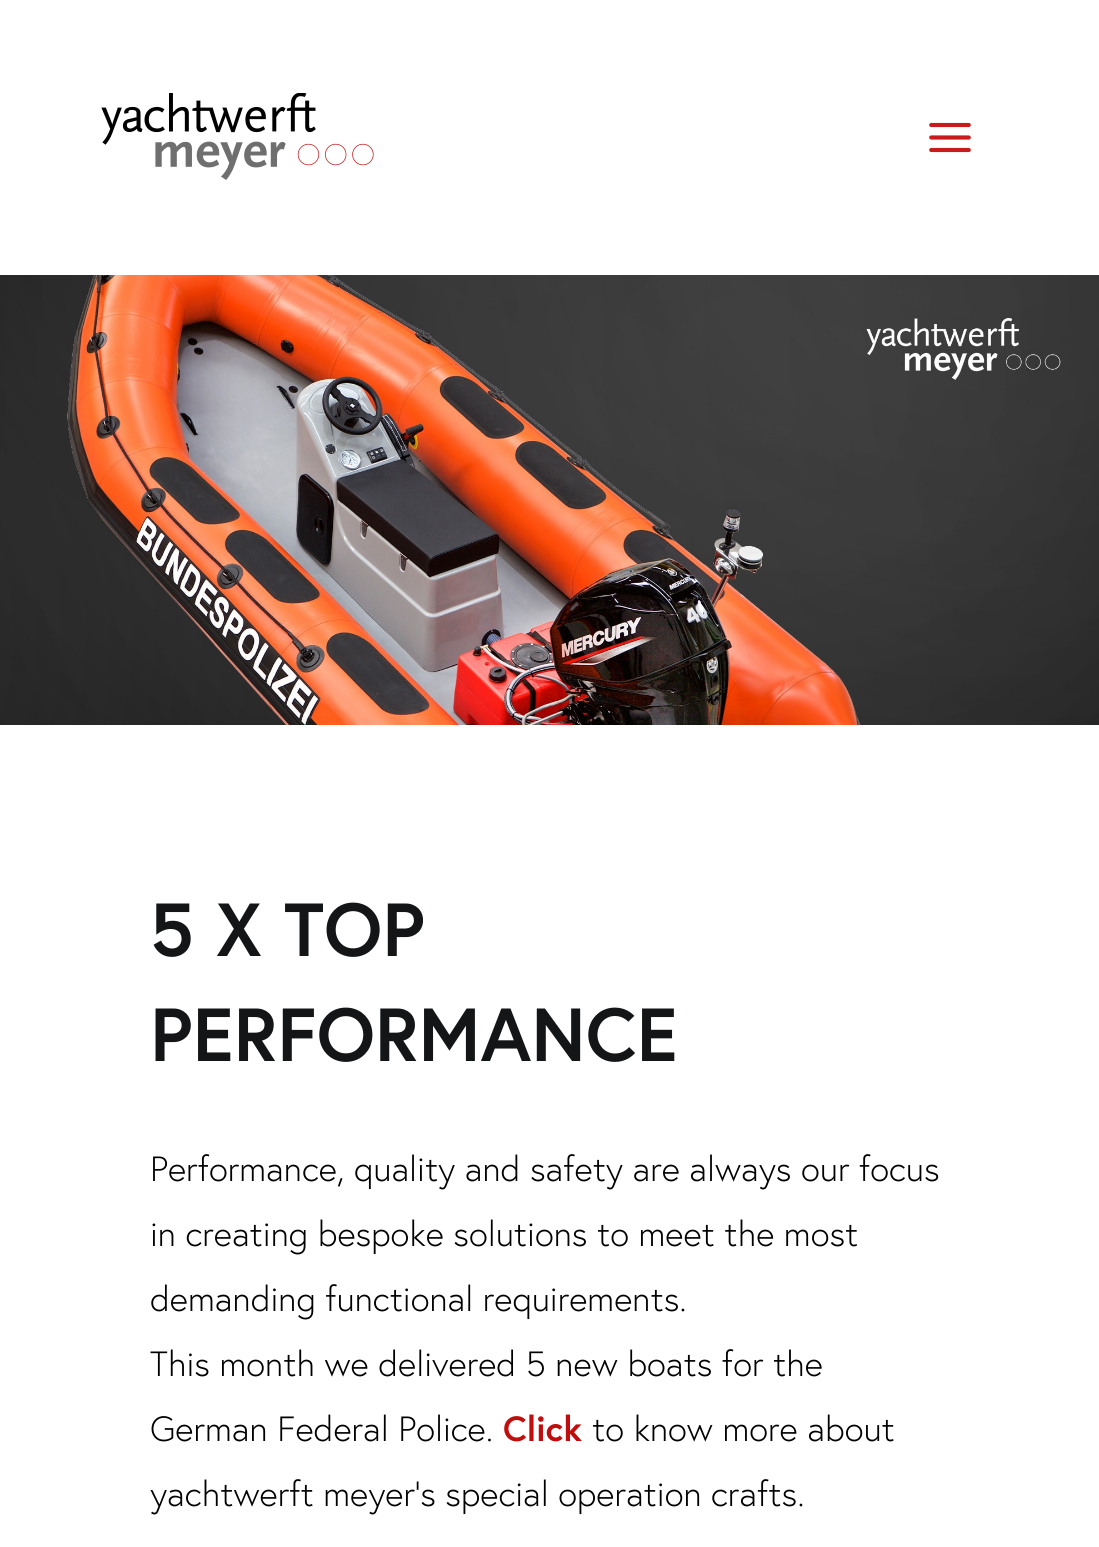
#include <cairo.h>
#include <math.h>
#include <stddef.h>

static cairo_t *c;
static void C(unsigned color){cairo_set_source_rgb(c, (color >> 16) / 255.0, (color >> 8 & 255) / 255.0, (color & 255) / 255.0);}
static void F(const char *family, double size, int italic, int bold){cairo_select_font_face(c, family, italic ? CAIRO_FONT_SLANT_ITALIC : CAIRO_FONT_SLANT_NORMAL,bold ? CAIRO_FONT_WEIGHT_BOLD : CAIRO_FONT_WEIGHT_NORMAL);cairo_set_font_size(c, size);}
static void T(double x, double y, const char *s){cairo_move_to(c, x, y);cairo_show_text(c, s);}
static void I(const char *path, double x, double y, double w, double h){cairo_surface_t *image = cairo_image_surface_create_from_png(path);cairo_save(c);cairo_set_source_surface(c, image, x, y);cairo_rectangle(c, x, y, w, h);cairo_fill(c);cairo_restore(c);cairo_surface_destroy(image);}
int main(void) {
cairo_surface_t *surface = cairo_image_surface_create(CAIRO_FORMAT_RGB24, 1099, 1547);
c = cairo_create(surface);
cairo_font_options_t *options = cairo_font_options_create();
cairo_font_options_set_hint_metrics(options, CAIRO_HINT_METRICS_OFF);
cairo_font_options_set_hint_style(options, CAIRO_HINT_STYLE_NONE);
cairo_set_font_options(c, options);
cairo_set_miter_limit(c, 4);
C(0xffffff);
cairo_paint(c);
I("1.png",101,93,273,87);
I("2.png",929,122,42,31);
I("3.png",0,275,1099,450);
F("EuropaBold",75,0,1);
C(0x131516);
T(150,956,"5 X TOP");
T(150,1061,"PERFORMANCE");
F("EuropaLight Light",35,0,0);
C(0x000000);
T(150,1181,"Performance, quality and safety are always our focus");
T(150,1246,"in creating bespoke solutions to meet the most");
T(150,1311,"demanding functional requirements.");
T(150,1376,"This month we delivered 5 new boats for the");
T(150,1441,"German Federal Police.");
F("EuropaBold",35,0,1);
C(0xc00d0d);
T(503,1441,"Click");
F("EuropaLight Light",35,0,0);
C(0x000000);
T(592,1441,"to know more about");
T(150,1506,"yachtwerft meyer’s special operation crafts.");
cairo_surface_write_to_png(surface, "o.png");
cairo_font_options_destroy(options);
cairo_destroy(c);
cairo_surface_destroy(surface);
return 0;
}
